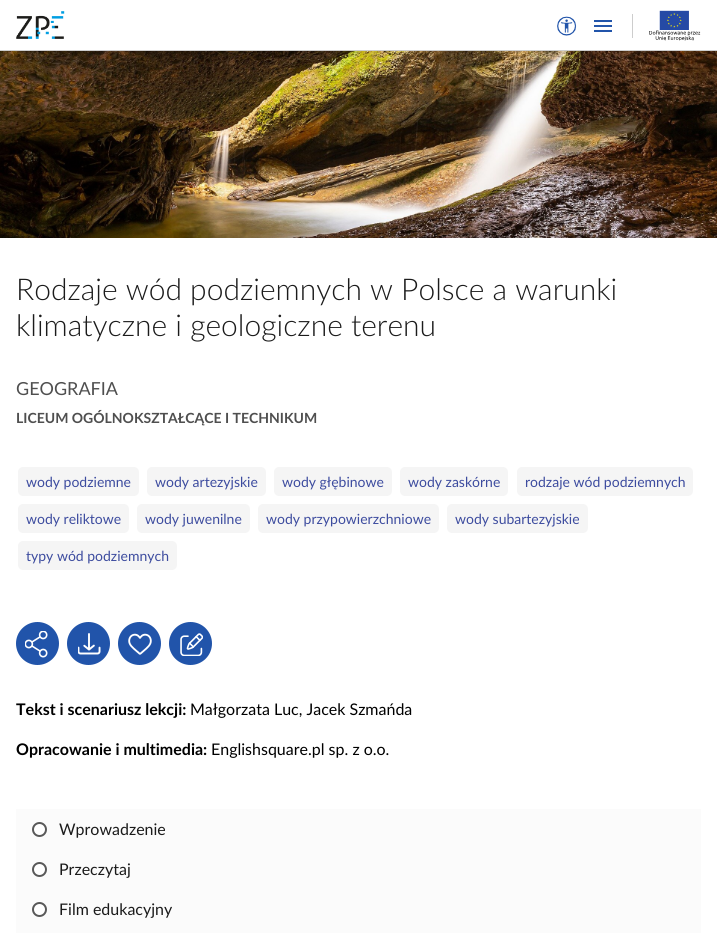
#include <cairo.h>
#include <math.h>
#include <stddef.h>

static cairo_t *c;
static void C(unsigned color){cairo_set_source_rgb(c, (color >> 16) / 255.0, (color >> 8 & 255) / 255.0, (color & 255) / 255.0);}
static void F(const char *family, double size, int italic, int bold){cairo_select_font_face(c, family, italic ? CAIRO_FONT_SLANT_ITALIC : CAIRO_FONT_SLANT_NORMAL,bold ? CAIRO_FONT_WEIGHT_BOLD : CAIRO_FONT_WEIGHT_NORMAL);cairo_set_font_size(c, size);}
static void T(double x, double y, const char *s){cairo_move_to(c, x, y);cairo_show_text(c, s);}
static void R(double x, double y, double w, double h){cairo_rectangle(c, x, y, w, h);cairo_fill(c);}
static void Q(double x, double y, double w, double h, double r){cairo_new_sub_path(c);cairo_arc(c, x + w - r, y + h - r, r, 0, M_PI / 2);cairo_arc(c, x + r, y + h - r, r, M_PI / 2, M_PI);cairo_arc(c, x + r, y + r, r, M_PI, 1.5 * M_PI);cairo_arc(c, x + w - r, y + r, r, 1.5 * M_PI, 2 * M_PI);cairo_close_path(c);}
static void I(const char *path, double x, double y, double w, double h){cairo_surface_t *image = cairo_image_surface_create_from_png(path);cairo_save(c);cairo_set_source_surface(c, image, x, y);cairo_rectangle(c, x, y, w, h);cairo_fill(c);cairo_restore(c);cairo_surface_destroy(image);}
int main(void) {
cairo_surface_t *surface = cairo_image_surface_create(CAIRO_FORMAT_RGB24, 717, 933);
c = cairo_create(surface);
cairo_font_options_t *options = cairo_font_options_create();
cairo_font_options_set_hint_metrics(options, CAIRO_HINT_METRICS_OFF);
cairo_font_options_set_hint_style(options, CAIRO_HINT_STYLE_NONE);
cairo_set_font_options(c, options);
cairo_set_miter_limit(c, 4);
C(0xffffff);
cairo_paint(c);
I("1.png",16,11,49,28);
I("2.png",557,16,20,20);
I("3.png",594,20,18,12);
C(0xcdcdcd);
R(632,14,1,24);
I("4.png",649,10,52,31);
R(0,50,717,1);
I("5.png",0,51,717,187);
F("Lato Light",30,0,0);
C(0x1b1b1b);
T(16,300,"Rodzaje wód podziemnych w Polsce a warunki");
T(16,336,"klimatyczne i geologiczne terenu");
F("Lato",18,0,0);
C(0x4f4f4f);
T(16,395,"GEOGRAFIA");
F("Lato",14,0,1);
T(16,423,"LICEUM OGÓLNOKSZTAŁCĄCE I TECHNIKUM");
C(0xf5f5f5);
Q(18,467,121,29,5);
cairo_fill(c);
F("Lato",14,0,0);
C(0x3d4c9f);
T(26,487,"wody podziemne");
C(0xf5f5f5);
Q(147,467,119,29,5);
cairo_fill(c);
C(0x3d4c9f);
T(155,487,"wody artezyjskie");
C(0xf5f5f5);
Q(274,467,118,29,5);
cairo_fill(c);
C(0x3d4c9f);
T(282,487,"wody głębinowe");
C(0xf5f5f5);
Q(400,467,108,29,5);
cairo_fill(c);
C(0x3d4c9f);
T(408,487,"wody zaskórne");
C(0xf5f5f5);
Q(517,467,176,29,5);
cairo_fill(c);
C(0x3d4c9f);
T(525,487,"rodzaje wód podziemnych");
C(0xf5f5f5);
Q(18,504,111,29,5);
cairo_fill(c);
C(0x3d4c9f);
T(26,524,"wody reliktowe");
C(0xf5f5f5);
Q(137,504,113,29,5);
cairo_fill(c);
C(0x3d4c9f);
T(145,524,"wody juwenilne");
C(0xf5f5f5);
Q(258,504,181,29,5);
cairo_fill(c);
C(0x3d4c9f);
T(266,524,"wody przypowierzchniowe");
C(0xf5f5f5);
Q(447,504,141,29,5);
cairo_fill(c);
C(0x3d4c9f);
T(455,524,"wody subartezyjskie");
C(0xf5f5f5);
Q(18,541,159,29,5);
cairo_fill(c);
C(0x3d4c9f);
T(26,561,"typy wód podziemnych");
C(0x2154aa);
cairo_new_path(c);
cairo_arc(c,37.5,643.5,21.5,0,2 * M_PI);
cairo_fill(c);
I("6.png",25,631,23,27);
cairo_arc(c,88.5,643.5,21.5,0,2 * M_PI);
cairo_fill(c);
I("7.png",78,633,23,22);
cairo_arc(c,139.5,643.5,21.5,0,2 * M_PI);
cairo_fill(c);
I("8.png",128,633,24,22);
cairo_arc(c,190.5,643.5,21.5,0,2 * M_PI);
cairo_fill(c);
I("9.png",180,633,23,23);
F("Lato",16,0,1);
C(0x000000);
T(16,715,"Tekst i scenariusz lekcji:");
F("Lato",16,0,0);
T(190,715,"Małgorzata Luc, Jacek Szmańda");
F("Lato",16,0,1);
T(16,755,"Opracowanie i multimedia:");
F("Lato",16,0,0);
T(211,755,"Englishsquare.pl sp. z o.o.");
C(0xfbfbfb);
R(16,809,685,124);
C(0xffffff);
cairo_new_path(c);
cairo_arc(c,39.5,829.5,6.5,0,2 * M_PI);
cairo_fill_preserve(c);
C(0x595959);
cairo_stroke(c);
C(0x1b1b1b);
T(59,835,"Wprowadzenie");
C(0xffffff);
cairo_new_path(c);
cairo_arc(c,39.5,869.5,6.5,0,2 * M_PI);
cairo_fill_preserve(c);
C(0x595959);
cairo_stroke(c);
C(0x1b1b1b);
T(59,875,"Przeczytaj");
C(0xffffff);
cairo_new_path(c);
cairo_arc(c,39.5,909.5,6.5,0,2 * M_PI);
cairo_fill_preserve(c);
C(0x595959);
cairo_stroke(c);
C(0x1b1b1b);
T(59,915,"Film edukacyjny");
cairo_surface_write_to_png(surface, "o.png");
cairo_font_options_destroy(options);
cairo_destroy(c);
cairo_surface_destroy(surface);
return 0;
}
